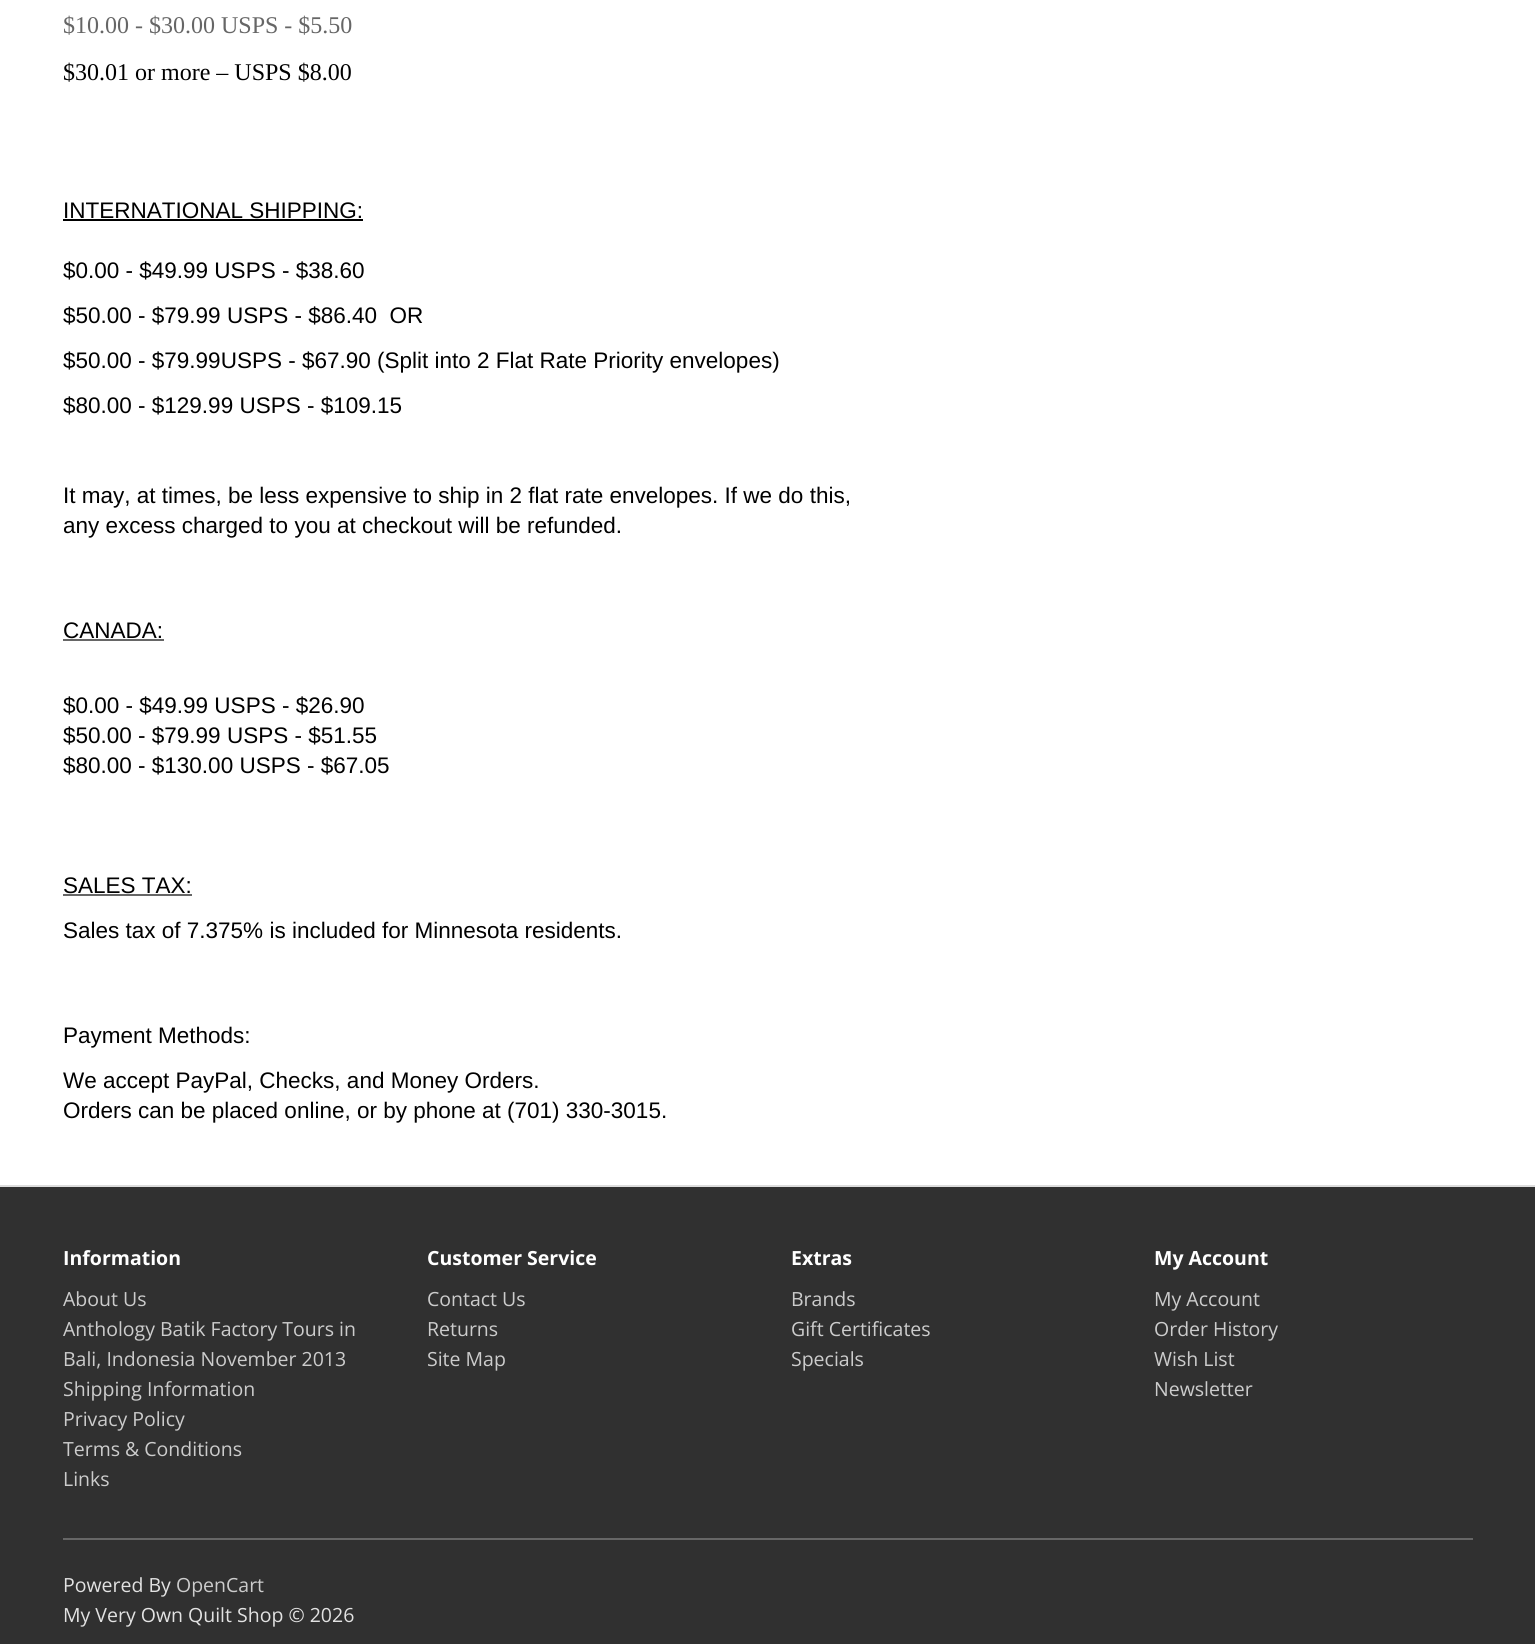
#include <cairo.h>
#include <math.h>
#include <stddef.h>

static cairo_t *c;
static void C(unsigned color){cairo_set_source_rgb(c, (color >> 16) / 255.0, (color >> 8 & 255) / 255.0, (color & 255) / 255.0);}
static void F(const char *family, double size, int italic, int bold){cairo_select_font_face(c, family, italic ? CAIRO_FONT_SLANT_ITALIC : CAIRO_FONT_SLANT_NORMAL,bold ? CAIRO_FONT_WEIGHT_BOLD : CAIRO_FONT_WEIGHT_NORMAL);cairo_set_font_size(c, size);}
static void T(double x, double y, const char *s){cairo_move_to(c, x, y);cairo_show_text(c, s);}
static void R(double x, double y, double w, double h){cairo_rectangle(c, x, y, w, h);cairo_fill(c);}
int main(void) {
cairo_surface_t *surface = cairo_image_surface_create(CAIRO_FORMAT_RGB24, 1535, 1644);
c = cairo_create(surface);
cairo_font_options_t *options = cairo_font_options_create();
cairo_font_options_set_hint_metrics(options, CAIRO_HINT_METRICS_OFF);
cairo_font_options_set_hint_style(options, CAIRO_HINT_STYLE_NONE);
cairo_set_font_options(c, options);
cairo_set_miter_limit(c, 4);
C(0xffffff);
cairo_paint(c);
F("Liberation Serif",24,0,0);
C(0x666666);
T(63,33,"$10.00 - $30.00 USPS - $5.50");
C(0x000000);
T(63,80,"$30.01 or more – USPS $8.00");
F("Liberation Sans",22.5,0,0);
T(63,218,"INTERNATIONAL SHIPPING:");
R(63,219,300,2);
T(63,278,"$0.00 - $49.99 USPS - $38.60");
T(63,323,"$50.00 - $79.99 USPS - $86.40  OR");
T(63,368,"$50.00 - $79.99USPS - $67.90 (Split into 2 Flat Rate Priority envelopes)");
T(63,413,"$80.00 - $129.99 USPS - $109.15");
T(63,503,"It may, at times, be less expensive to ship in 2 flat rate envelopes. If we do this,");
T(63,533,"any excess charged to you at checkout will be refunded.");
T(63,638,"CANADA:");
C(0x666666);
R(63,639,101,2);
C(0x000000);
T(63,713,"$0.00 - $49.99 USPS - $26.90");
T(63,743,"$50.00 - $79.99 USPS - $51.55");
T(63,773,"$80.00 - $130.00 USPS - $67.05");
T(63,893,"SALES TAX:");
C(0x666666);
R(63,894,129,2);
C(0x000000);
T(63,938,"Sales tax of 7.375% is included for Minnesota residents.");
T(63,1043,"Payment Methods:");
T(63,1088,"We accept PayPal, Checks, and Money Orders.");
T(63,1118,"Orders can be placed online, or by phone at (701) 330-3015.");
C(0x303030);
R(0,1187,1535,457);
C(0xdddddd);
R(0,1185,1535,2);
F("Open Sans",19.5,0,1);
C(0xffffff);
T(63,1265,"Information");
F("Open Sans",19.5,0,0);
C(0xcccccc);
T(63,1306,"About Us");
T(63,1336,"Anthology Batik Factory Tours in");
T(63,1366,"Bali, Indonesia November 2013");
T(63,1396,"Shipping Information");
T(63,1426,"Privacy Policy");
T(63,1456,"Terms & Conditions");
T(63,1486,"Links");
F("Open Sans",19.5,0,1);
C(0xffffff);
T(427,1265,"Customer Service");
F("Open Sans",19.5,0,0);
C(0xcccccc);
T(427,1306,"Contact Us");
T(427,1336,"Returns");
T(427,1366,"Site Map");
F("Open Sans",19.5,0,1);
C(0xffffff);
T(791,1265,"Extras");
F("Open Sans",19.5,0,0);
C(0xcccccc);
T(791,1306,"Brands");
T(791,1336,"Gift Certificates");
T(791,1366,"Specials");
F("Open Sans",19.5,0,1);
C(0xffffff);
T(1154,1265,"My Account");
F("Open Sans",19.5,0,0);
C(0xcccccc);
T(1154,1306,"My Account");
T(1154,1336,"Order History");
T(1154,1366,"Wish List");
T(1154,1396,"Newsletter");
C(0x666666);
R(63,1538,1410,2);
C(0xe2e2e2);
T(63,1592,"Powered By");
C(0xcccccc);
T(176,1592,"OpenCart");
C(0xe2e2e2);
T(63,1622,"My Very Own Quilt Shop © 2026");
cairo_surface_write_to_png(surface, "o.png");
cairo_font_options_destroy(options);
cairo_destroy(c);
cairo_surface_destroy(surface);
return 0;
}
